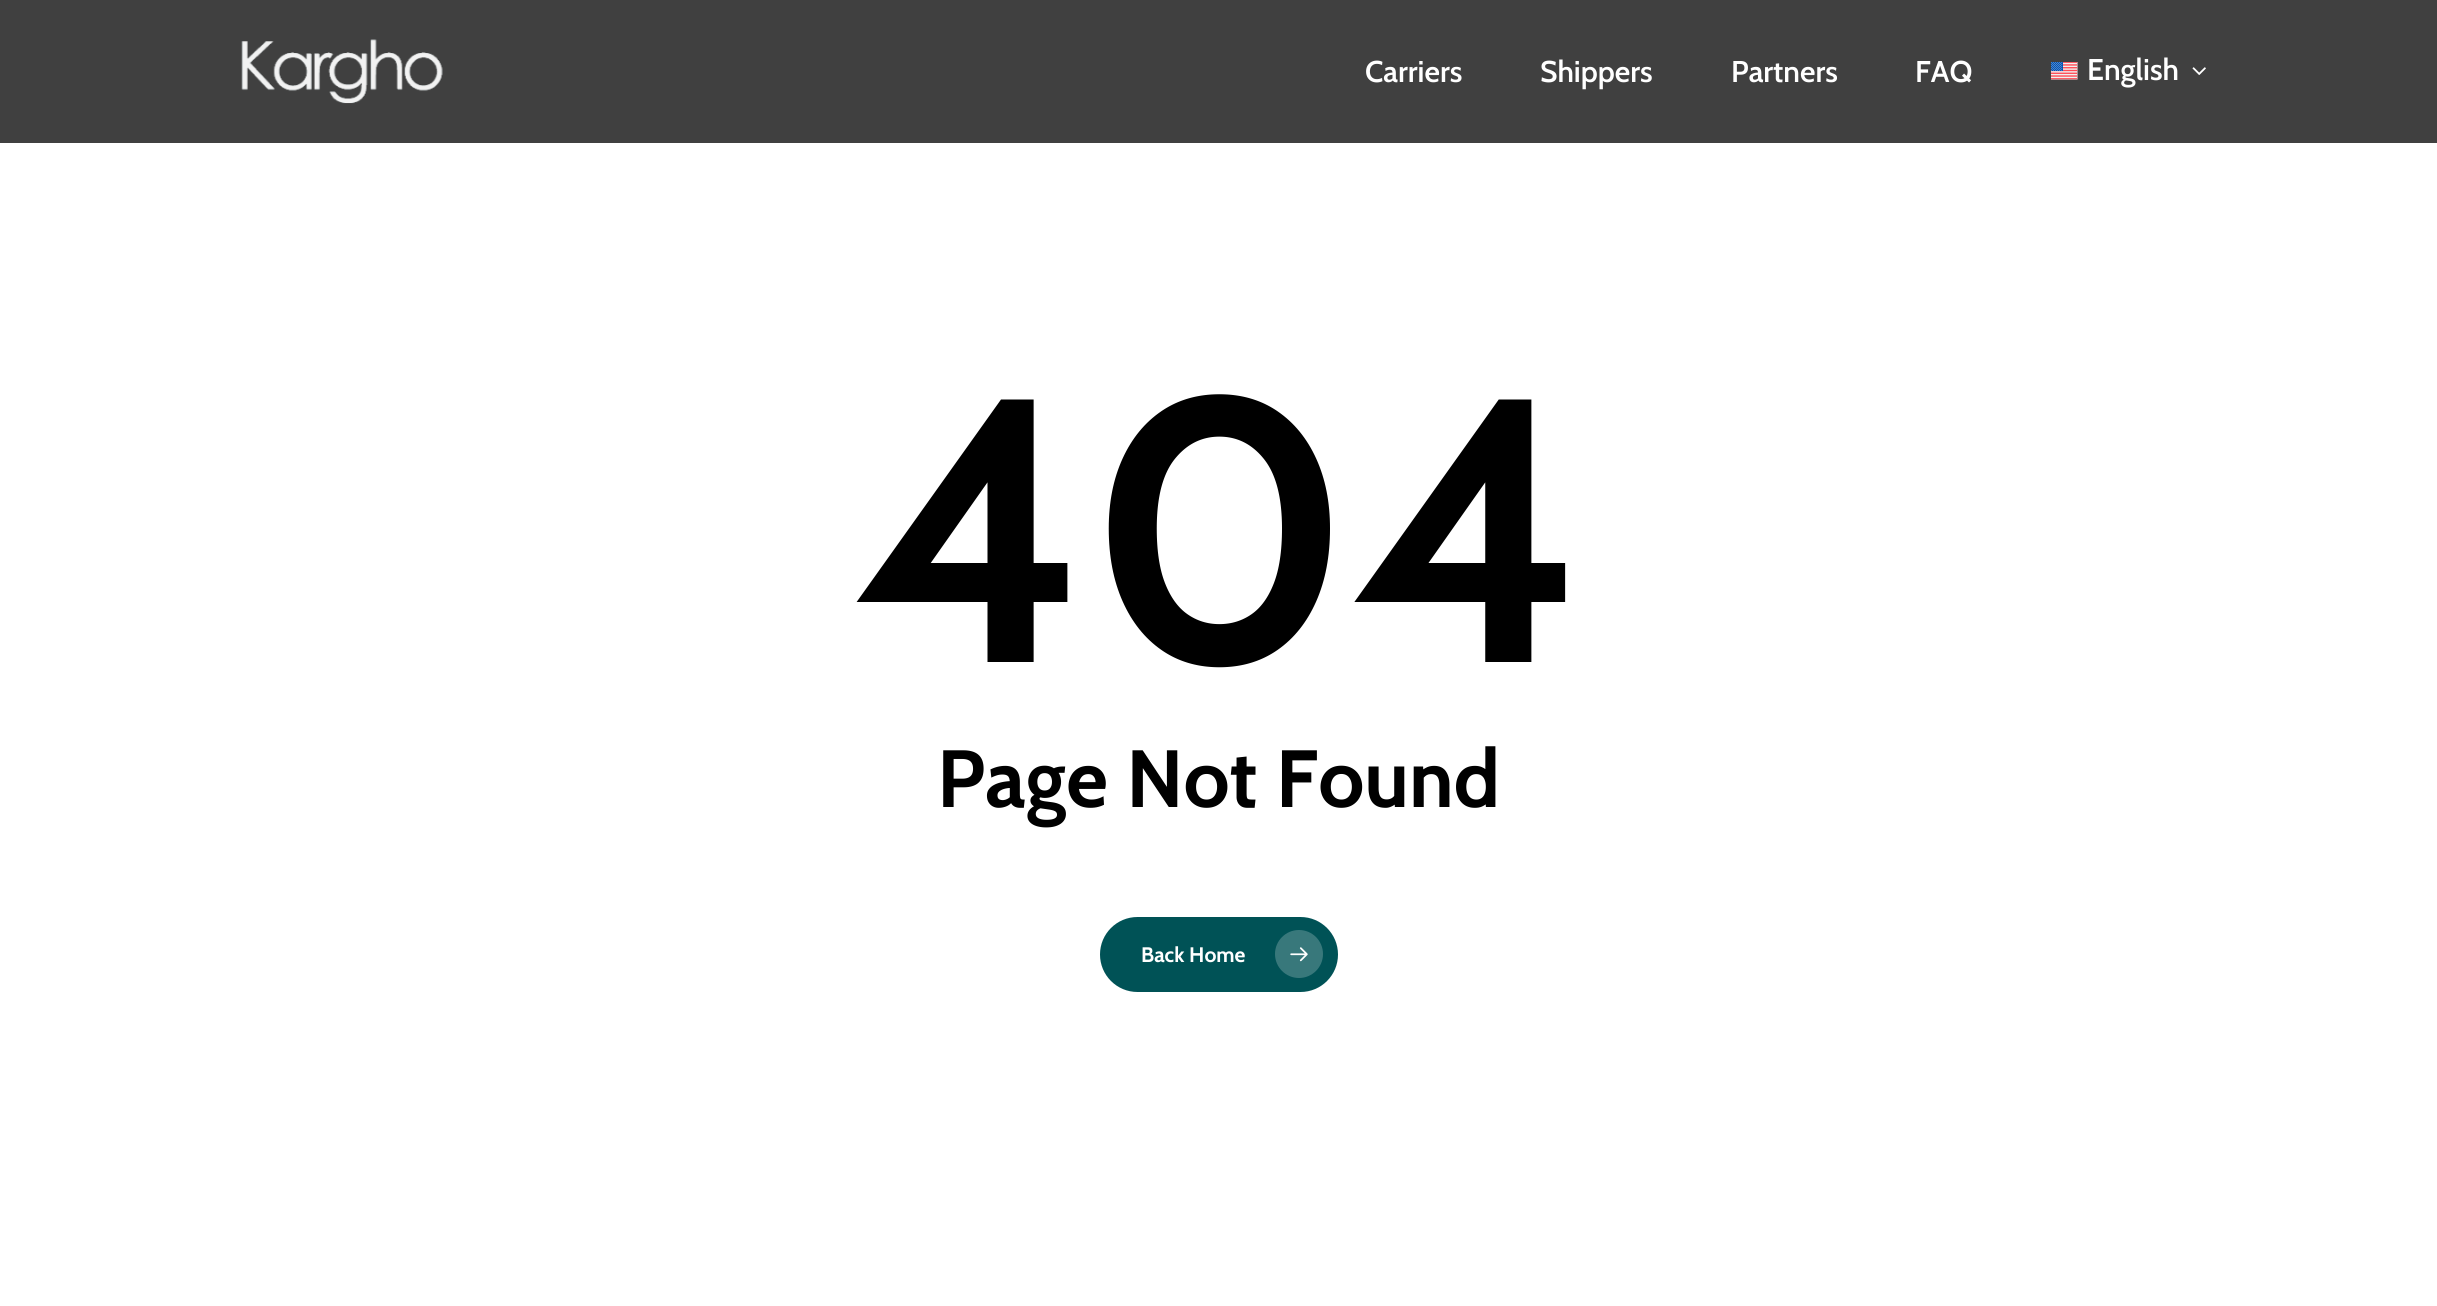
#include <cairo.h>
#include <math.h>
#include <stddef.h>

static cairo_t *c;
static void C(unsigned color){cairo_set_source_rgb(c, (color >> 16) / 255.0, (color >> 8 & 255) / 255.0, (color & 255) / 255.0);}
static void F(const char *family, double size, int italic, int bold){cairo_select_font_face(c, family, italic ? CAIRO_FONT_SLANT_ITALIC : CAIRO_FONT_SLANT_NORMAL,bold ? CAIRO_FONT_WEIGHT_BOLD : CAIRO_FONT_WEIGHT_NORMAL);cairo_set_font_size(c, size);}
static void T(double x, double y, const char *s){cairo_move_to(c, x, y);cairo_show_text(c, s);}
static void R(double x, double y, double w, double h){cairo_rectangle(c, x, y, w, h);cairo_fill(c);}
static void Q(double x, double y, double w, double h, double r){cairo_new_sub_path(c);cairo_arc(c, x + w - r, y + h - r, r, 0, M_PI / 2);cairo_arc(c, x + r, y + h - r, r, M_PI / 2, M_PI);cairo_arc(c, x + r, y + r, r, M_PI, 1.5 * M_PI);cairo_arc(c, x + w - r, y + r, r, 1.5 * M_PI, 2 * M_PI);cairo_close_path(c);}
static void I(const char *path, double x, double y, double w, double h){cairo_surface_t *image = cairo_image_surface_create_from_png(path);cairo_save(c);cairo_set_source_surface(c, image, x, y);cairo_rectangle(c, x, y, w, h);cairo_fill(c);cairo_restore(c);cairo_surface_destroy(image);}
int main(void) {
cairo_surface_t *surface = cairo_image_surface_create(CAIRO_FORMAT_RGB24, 2437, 1306);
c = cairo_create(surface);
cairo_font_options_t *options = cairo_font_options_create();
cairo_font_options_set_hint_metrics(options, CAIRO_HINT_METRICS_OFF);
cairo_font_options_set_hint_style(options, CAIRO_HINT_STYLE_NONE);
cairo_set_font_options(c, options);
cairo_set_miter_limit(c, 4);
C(0xffffff);
cairo_paint(c);
C(0x404040);
R(0,0,2437,143);
I("1.png",241,39,202,65);
F("Cabin SemiBold",30,0,0);
C(0xffffff);
T(1365,82,"Carriers");
T(1540,82,"Shippers");
T(1731,82,"Partners");
T(1915,82,"FAQ");
I("2.png",2051,62,27,18);
T(2087,80,"English");
I("3.png",2192,67,14,8);
F("Cabin",375,0,1);
C(0x000000);
T(854,662,"404");
F("Cabin",81,0,1);
T(937,807,"Page Not Found");
C(0x005256);
Q(1100,917,238,75,37.5);
cairo_fill(c);
F("Cabin",21,0,1);
C(0xffffff);
T(1141,962,"Back Home");
C(0x38787b);
cairo_new_path(c);
cairo_arc(c,1299,954,24,0,2 * M_PI);
cairo_fill(c);
I("4.png",1290,947,18,15);
cairo_surface_write_to_png(surface, "o.png");
cairo_font_options_destroy(options);
cairo_destroy(c);
cairo_surface_destroy(surface);
return 0;
}
